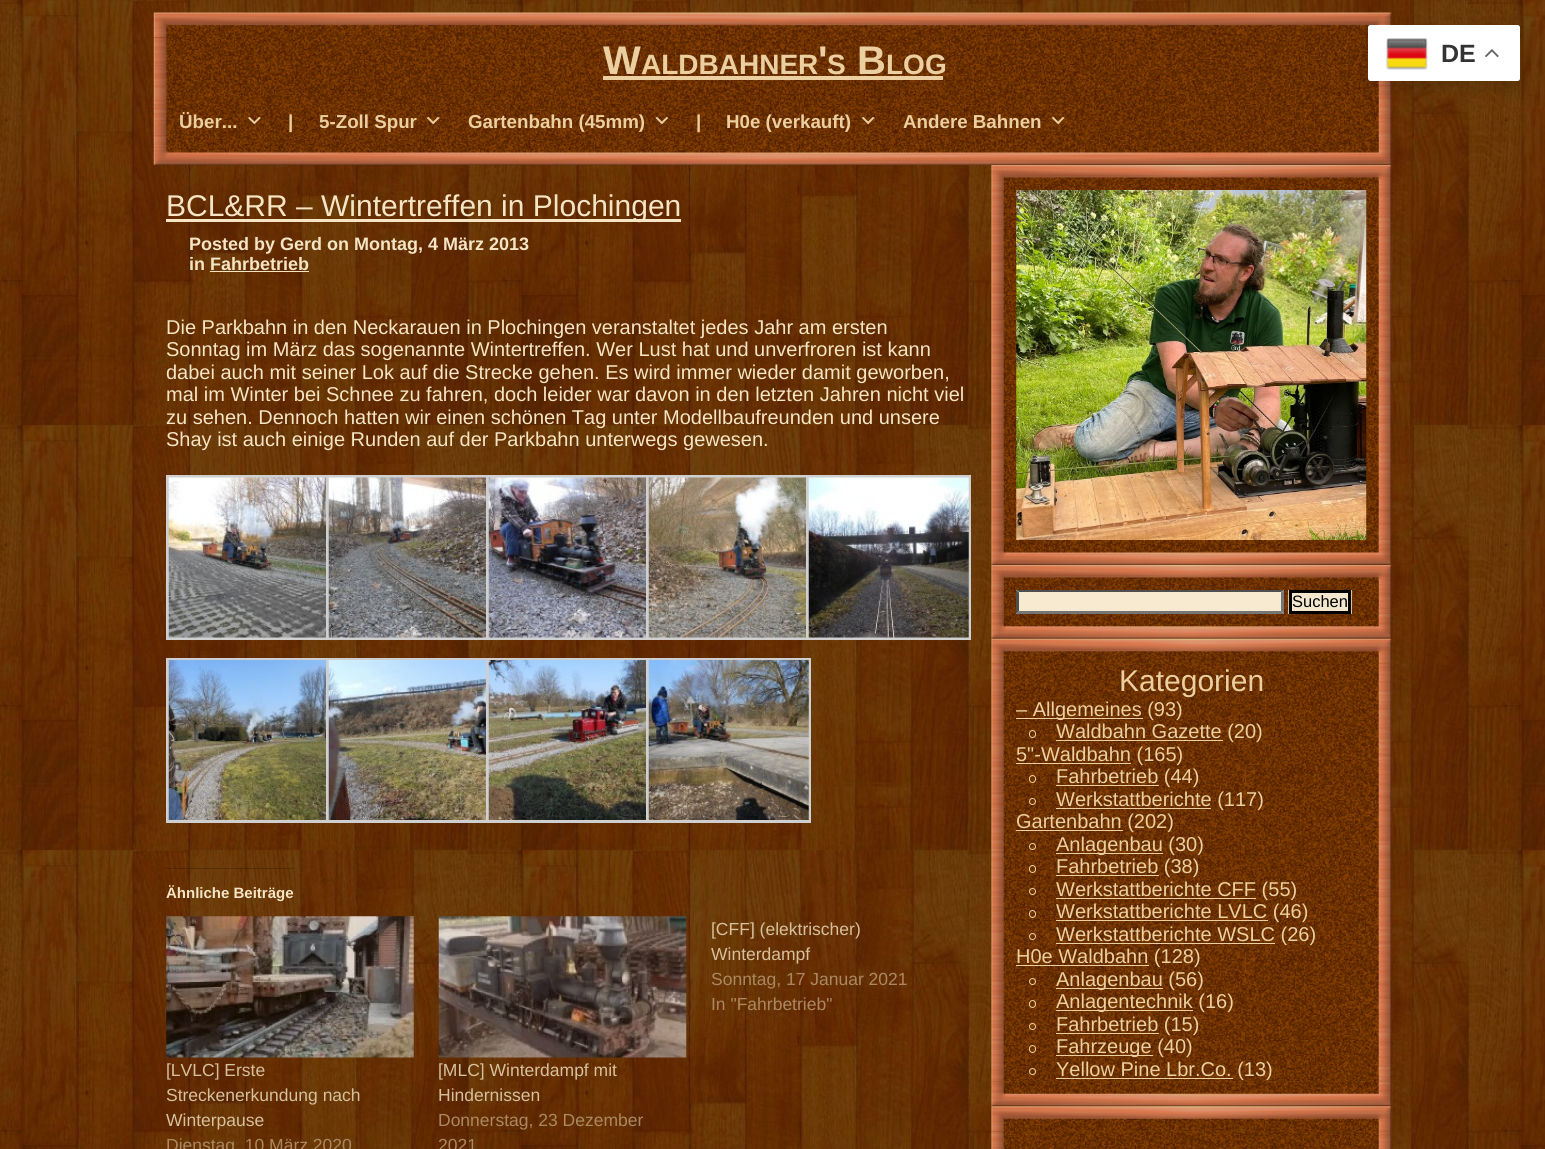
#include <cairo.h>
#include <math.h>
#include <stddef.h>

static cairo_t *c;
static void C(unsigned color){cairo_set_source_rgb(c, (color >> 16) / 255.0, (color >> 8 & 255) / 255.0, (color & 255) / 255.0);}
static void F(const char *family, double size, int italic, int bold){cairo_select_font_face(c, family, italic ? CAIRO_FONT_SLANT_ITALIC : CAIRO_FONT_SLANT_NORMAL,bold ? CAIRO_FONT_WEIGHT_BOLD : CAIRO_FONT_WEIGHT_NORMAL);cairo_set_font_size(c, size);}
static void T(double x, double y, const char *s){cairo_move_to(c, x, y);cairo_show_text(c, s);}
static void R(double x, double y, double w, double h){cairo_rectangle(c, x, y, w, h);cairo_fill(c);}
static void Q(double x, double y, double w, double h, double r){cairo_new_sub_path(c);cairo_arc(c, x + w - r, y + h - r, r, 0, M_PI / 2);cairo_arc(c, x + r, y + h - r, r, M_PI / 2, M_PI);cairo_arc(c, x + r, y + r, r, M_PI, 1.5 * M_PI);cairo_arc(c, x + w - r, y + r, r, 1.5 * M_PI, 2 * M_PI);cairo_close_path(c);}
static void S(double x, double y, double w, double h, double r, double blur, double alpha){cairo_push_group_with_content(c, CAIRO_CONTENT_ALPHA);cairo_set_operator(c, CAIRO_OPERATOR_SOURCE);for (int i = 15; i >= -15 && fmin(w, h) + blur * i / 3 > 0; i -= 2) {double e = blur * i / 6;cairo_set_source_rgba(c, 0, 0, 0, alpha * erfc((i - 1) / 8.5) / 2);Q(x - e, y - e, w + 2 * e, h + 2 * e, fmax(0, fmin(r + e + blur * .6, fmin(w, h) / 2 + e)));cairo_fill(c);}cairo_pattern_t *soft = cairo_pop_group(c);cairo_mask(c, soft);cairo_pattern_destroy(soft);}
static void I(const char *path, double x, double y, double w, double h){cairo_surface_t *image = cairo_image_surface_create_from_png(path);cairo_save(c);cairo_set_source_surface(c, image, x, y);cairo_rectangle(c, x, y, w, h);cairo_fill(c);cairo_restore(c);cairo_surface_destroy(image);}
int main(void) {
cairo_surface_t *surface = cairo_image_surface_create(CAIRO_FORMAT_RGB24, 1545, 1149);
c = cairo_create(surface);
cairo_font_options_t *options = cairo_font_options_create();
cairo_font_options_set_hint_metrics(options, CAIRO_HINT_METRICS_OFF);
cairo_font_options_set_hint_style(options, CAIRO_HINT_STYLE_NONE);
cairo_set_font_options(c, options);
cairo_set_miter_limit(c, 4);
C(0xffffff);
cairo_paint(c);
I("1.png",0,0,1545,1149);
I("2.png",153,12,1239,26);
I("3.png",153,37,1239,103);
F("Liberation Sans",40,0,1);
C(0xeccfa0);
T(603,74,"W");
F("Liberation Sans",28,0,1);
T(641,74,"ALDBAHNER");
F("Liberation Sans",40,0,1);
T(818,74,"'");
F("Liberation Sans",28,0,1);
T(827,74,"S");
R(603,76,340,4);
F("Liberation Sans",40,0,1);
T(857,74,"B");
F("Liberation Sans",28,0,1);
T(886,74,"LOG");
F("Liberation Sans",18.75,0,1);
T(179,128,"Über...");
I("4.png",248,117,13,8);
T(288,128,"|");
T(319,128,"5-Zoll Spur");
I("5.png",426,117,14,8);
T(468,128,"Gartenbahn (45mm)");
I("6.png",655,117,14,8);
T(696,128,"|");
T(726,128,"H0e (verkauft)");
I("7.png",861,117,14,8);
T(903,128,"Andere Bahnen");
I("8.png",1051,117,14,8);
I("9.png",153,140,1239,25);
C(0x000000);
S(1368,31,152,57,2.5,9.5,.15);
C(0xffffff);
Q(1368,25,152,56,2.5);
cairo_fill(c);
I("10.png",1386,38,42,32);
F("Liberation Sans",25,0,1);
C(0x333333);
T(1441,62,"DE");
I("11.png",1485,49,14,9);
C(0xf5e5c5);
R(166,219,515,3);
F("Liberation Sans",30,0,0);
T(166,216,"BCL&RR – Wintertreffen in Plochingen");
F("Liberation Sans",18,0,1);
T(189,250,"Posted by Gerd on Montag, 4 März 2013");
T(189,270,"in Fahrbetrieb");
R(210,271,99,1);
F("Liberation Sans",20,0,0);
T(166,334,"Die Parkbahn in den Neckarauen in Plochingen veranstaltet jedes Jahr am ersten");
T(166,356,"Sonntag im März das sogenannte Wintertreffen. Wer Lust hat und unverfroren ist kann");
T(166,379,"dabei auch mit seiner Lok auf die Strecke gehen. Es wird immer wieder damit geworben,");
T(166,401,"mal im Winter bei Schnee zu fahren, doch leider war davon in den letzten Jahren nicht viel");
T(166,424,"zu sehen. Dennoch hatten wir einen schönen Tag unter Modellbaufreunden und unsere");
T(166,446,"Shay ist auch einige Runden auf der Parkbahn unterwegs gewesen.");
cairo_rectangle(c,167.5,476.5,162,162);
C(0xcfcfcf);
cairo_set_line_width(c,3);
cairo_stroke(c);
I("12.png",168,477,158,161);
cairo_rectangle(c,327.5,476.5,162,162);
cairo_stroke(c);
I("13.png",328,477,158,161);
cairo_rectangle(c,487.5,476.5,162,162);
cairo_stroke(c);
I("14.png",488,477,158,161);
cairo_rectangle(c,647.5,476.5,162,162);
cairo_stroke(c);
I("15.png",648,477,158,161);
cairo_rectangle(c,807.5,476.5,162,162);
cairo_stroke(c);
I("16.png",808,477,161,161);
cairo_rectangle(c,167.5,659.5,162,162);
cairo_stroke(c);
I("17.png",168,660,158,160);
cairo_rectangle(c,327.5,659.5,162,162);
cairo_stroke(c);
I("18.png",328,660,158,160);
cairo_rectangle(c,487.5,659.5,162,162);
cairo_stroke(c);
I("19.png",488,660,158,160);
cairo_rectangle(c,647.5,659.5,162,162);
cairo_stroke(c);
I("20.png",648,660,161,160);
cairo_set_source_rgba(c,0,0,0,0.2);
R(166,868,128,1);
F("Liberation Sans",15,0,1);
C(0xf5e5c5);
T(166,898,"Ähnliche Beiträge");
F("Liberation Sans",17.5,0,0);
C(0xd7c09e);
T(711,935,"[CFF] (elektrischer)");
T(711,960,"Winterdampf");
C(0xab8861);
T(711,985,"Sonntag, 17 Januar 2021");
T(711,1010,"In \"Fahrbetrieb\"");
I("21.png",166,916,248,142);
C(0xd7c09e);
T(166,1076,"[LVLC] Erste");
T(166,1101,"Streckenerkundung nach");
T(166,1126,"Winterpause");
C(0xab8861);
T(166,1151,"Dienstag, 10 März 2020");
I("22.png",438,916,249,142);
C(0xd7c09e);
T(438,1076,"[MLC] Winterdampf mit");
T(438,1101,"Hindernissen");
C(0xab8861);
T(438,1126,"Donnerstag, 23 Dezember");
T(438,1151,"2021");
C(0x784800);
R(991,165,1,425);
I("23.png",991,165,401,25);
I("24.png",991,190,400,350);
I("25.png",1016,190,351,350);
I("26.png",991,540,400,25);
I("27.png",991,565,401,25);
R(991,590,400,74);
I("28.png",991,590,400,24);
I("29.png",991,613,400,26);
C(0xf7ead1);
R(1016,590,268,24);
C(0x4f4f4f);
cairo_new_path(c);
cairo_move_to(c,1016,590);
cairo_line_to(c,1284,590);
cairo_line_to(c,1281,592);
cairo_line_to(c,1019,592);
cairo_close_path(c);
cairo_fill(c);
C(0x767676);
cairo_new_path(c);
cairo_move_to(c,1284,590);
cairo_line_to(c,1284,614);
cairo_line_to(c,1281,611);
cairo_line_to(c,1281,592.5);
cairo_close_path(c);
cairo_fill(c);
cairo_new_path(c);
cairo_move_to(c,1284,614);
cairo_line_to(c,1016,614);
cairo_line_to(c,1019,611);
cairo_line_to(c,1281,611);
cairo_close_path(c);
cairo_fill(c);
C(0x4f4f4f);
cairo_new_path(c);
cairo_move_to(c,1016,614);
cairo_line_to(c,1016,590);
cairo_line_to(c,1019,592.5);
cairo_line_to(c,1019,611);
cairo_close_path(c);
cairo_fill(c);
C(0xefefef);
R(1292,593,56,18);
cairo_set_source_rgba(c,0.961,0.898,0.776,0.8);
R(1288,590,64,24);
cairo_rectangle(c,1290.5,591.5,59,21);
C(0x000000);
cairo_stroke(c);
F("Liberation Sans",16.5,0,0);
T(1292,607,"Suchen");
I("30.png",991,638,401,26);
C(0x784800);
R(991,664,1,417);
I("31.png",991,663,400,418);
F("Liberation Sans",30,0,0);
C(0xeccfa0);
T(1119,691,"Kategorien");
R(1016,718,127,1);
F("Liberation Sans",20,0,0);
T(1016,716,"– Allgemeines (93)");
Q(1029.5,730.5,6,7,3);
cairo_set_line_width(c,1);
cairo_stroke(c);
R(1056,740,167,1);
T(1056,738,"Waldbahn Gazette (20)");
R(1016,763,115,1);
T(1016,761,"5\"-Waldbahn (165)");
Q(1029.5,775.5,6,7,3);
cairo_stroke(c);
R(1056,785,103,1);
T(1056,783,"Fahrbetrieb (44)");
cairo_new_path(c);
cairo_arc(c,1032.5,801.5,3,0,2 * M_PI);
cairo_stroke(c);
R(1056,808,155,1);
T(1056,806,"Werkstattberichte (117)");
R(1016,830,107,1);
T(1016,828,"Gartenbahn (202)");
cairo_new_path(c);
cairo_arc(c,1032.5,846.5,3,0,2 * M_PI);
cairo_stroke(c);
R(1056,853,107,1);
T(1056,851,"Anlagenbau (30)");
Q(1029.5,865.5,6,7,3);
cairo_stroke(c);
R(1056,875,103,1);
T(1056,873,"Fahrbetrieb (38)");
cairo_new_path(c);
cairo_arc(c,1032.5,891.5,3,0,2 * M_PI);
cairo_stroke(c);
R(1056,898,200,1);
T(1056,896,"Werkstattberichte CFF (55)");
Q(1029.5,910.5,6,7,3);
cairo_stroke(c);
R(1056,920,212,1);
T(1056,918,"Werkstattberichte LVLC (46)");
cairo_new_path(c);
cairo_arc(c,1032.5,936.5,3,0,2 * M_PI);
cairo_stroke(c);
R(1056,943,219,1);
T(1056,941,"Werkstattberichte WSLC (26)");
R(1016,965,133,1);
T(1016,963,"H0e Waldbahn (128)");
cairo_new_path(c);
cairo_arc(c,1032.5,981.5,3,0,2 * M_PI);
cairo_stroke(c);
R(1056,988,107,1);
T(1056,986,"Anlagenbau (56)");
Q(1029.5,1000.5,6,7,3);
cairo_stroke(c);
R(1056,1010,137,1);
T(1056,1008,"Anlagentechnik (16)");
cairo_new_path(c);
cairo_arc(c,1032.5,1026.5,3,0,2 * M_PI);
cairo_stroke(c);
R(1056,1033,103,1);
T(1056,1031,"Fahrbetrieb (15)");
Q(1029.5,1045.5,6,7,3);
cairo_stroke(c);
R(1056,1055,97,1);
T(1056,1053,"Fahrzeuge (40)");
cairo_new_path(c);
cairo_arc(c,1032.5,1071.5,3,0,2 * M_PI);
cairo_stroke(c);
R(1056,1078,177,1);
T(1056,1076,"Yellow Pine Lbr.Co. (13)");
C(0x784800);
R(991,1081,400,68);
I("32.png",991,1081,400,25);
I("33.png",991,1106,401,25);
I("34.png",991,1131,400,18);
cairo_surface_write_to_png(surface, "o.png");
cairo_font_options_destroy(options);
cairo_destroy(c);
cairo_surface_destroy(surface);
return 0;
}
